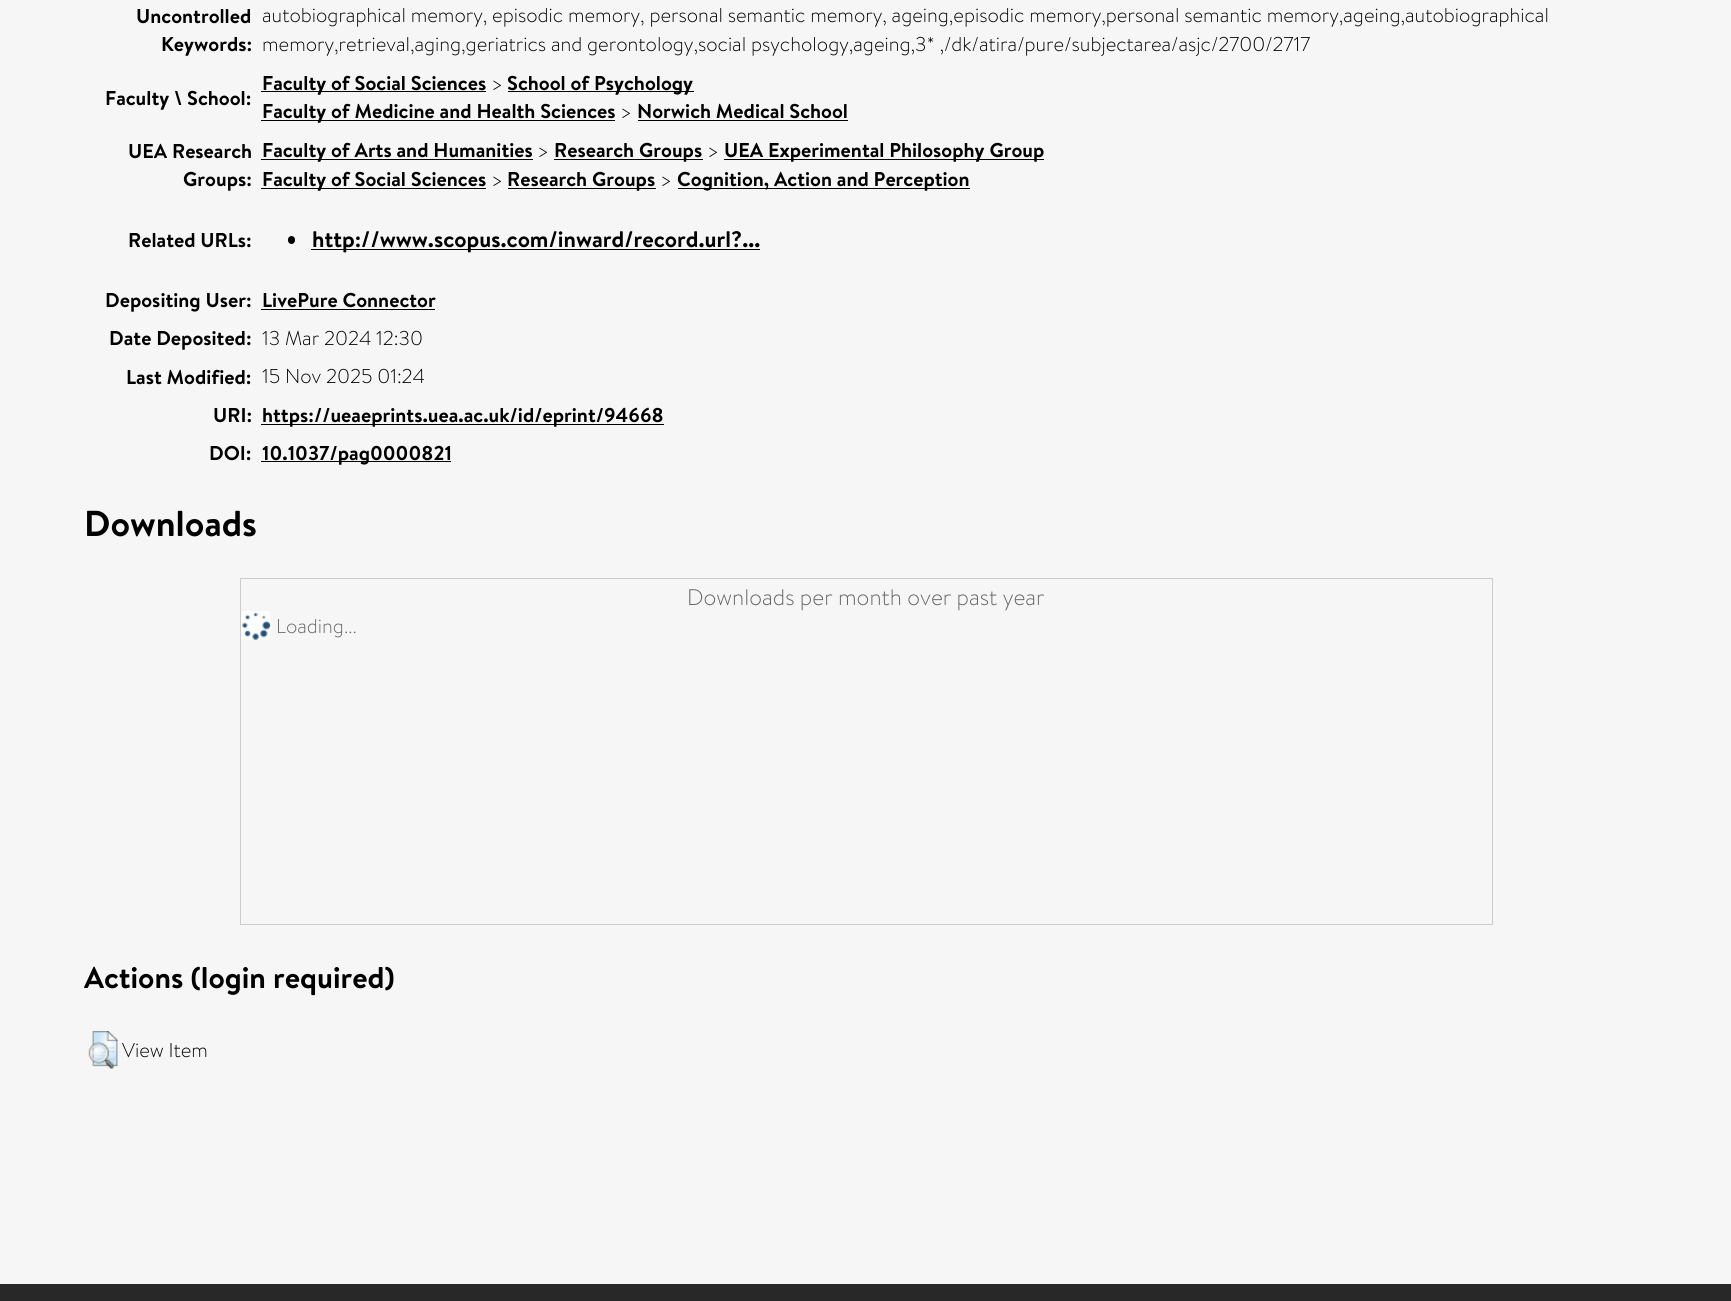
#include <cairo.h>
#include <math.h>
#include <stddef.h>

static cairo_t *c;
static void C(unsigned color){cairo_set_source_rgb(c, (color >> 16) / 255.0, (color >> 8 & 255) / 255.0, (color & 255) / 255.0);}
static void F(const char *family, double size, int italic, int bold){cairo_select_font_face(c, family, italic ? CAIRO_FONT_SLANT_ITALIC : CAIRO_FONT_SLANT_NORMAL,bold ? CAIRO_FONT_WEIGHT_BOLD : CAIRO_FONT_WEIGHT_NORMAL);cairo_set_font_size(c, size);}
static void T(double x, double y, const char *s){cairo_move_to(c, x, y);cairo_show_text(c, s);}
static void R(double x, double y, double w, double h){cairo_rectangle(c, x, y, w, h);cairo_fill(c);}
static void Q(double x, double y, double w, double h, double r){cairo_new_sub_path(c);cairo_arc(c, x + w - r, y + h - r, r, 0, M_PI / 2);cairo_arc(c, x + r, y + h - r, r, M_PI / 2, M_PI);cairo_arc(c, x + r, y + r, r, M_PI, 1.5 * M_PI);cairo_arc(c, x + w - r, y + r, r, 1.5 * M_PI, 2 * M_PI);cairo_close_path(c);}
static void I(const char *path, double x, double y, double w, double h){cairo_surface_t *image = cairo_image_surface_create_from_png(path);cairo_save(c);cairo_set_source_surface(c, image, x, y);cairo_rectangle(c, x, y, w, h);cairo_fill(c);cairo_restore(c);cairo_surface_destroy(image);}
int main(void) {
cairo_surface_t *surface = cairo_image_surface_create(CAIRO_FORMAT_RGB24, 1731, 1301);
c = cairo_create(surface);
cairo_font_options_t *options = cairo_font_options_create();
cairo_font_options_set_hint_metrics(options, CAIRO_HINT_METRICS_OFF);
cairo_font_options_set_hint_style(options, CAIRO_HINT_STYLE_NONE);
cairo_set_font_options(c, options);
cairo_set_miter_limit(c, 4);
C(0xf6f6f6);
cairo_paint(c);
F("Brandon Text",20,0,1);
C(0x000000);
T(136,23,"Uncontrolled");
T(161,51,"Keywords:");
F("Brandon Text Light",20,0,0);
T(262,22,"autobiographical memory, episodic memory, personal semantic memory, ageing,episodic memory,personal semantic memory,ageing,autobiographical");
T(262,51,"memory,retrieval,aging,geriatrics and gerontology,social psychology,ageing,3* ,/dk/atira/pure/subjectarea/asjc/2700/2717");
F("Brandon Text",20,0,1);
T(105,105,"Faculty \\ School:");
R(261,91,225,1);
T(262,90,"Faculty of Social Sciences");
F("Brandon Text Light",20,0,0);
T(491,90,">");
R(508,91,186,1);
F("Brandon Text",20,0,1);
T(507,90,"School of Psychology");
R(261,120,354,1);
T(262,118,"Faculty of Medicine and Health Sciences");
F("Brandon Text Light",20,0,0);
T(620,118,">");
F("Brandon Text",20,0,1);
T(637,118,"Norwich Medical School");
R(638,120,210,1);
T(128,158,"UEA Research");
T(183,186,"Groups:");
R(261,159,272,1);
T(262,157,"Faculty of Arts and Humanities");
F("Brandon Text Light",20,0,0);
T(537,157,">");
R(554,159,149,1);
F("Brandon Text",20,0,1);
T(554,157,"Research Groups");
F("Brandon Text Light",20,0,0);
T(707,157,">");
R(724,159,320,1);
F("Brandon Text",20,0,1);
T(724,157,"UEA Experimental Philosophy Group");
R(261,188,225,1);
T(262,186,"Faculty of Social Sciences");
F("Brandon Text Light",20,0,0);
T(491,186,">");
R(508,188,148,1);
F("Brandon Text",20,0,1);
T(507,186,"Research Groups");
F("Brandon Text Light",20,0,0);
T(660,186,">");
R(678,188,292,1);
F("Brandon Text",20,0,1);
T(677,186,"Cognition, Action and Perception");
T(128,247,"Related URLs:");
Q(288,236,7,8,3.5);
cairo_fill(c);
R(311,249,449,1);
F("Brandon Text",22.5,0,1);
T(312,247,"http://www.scopus.com/inward/record.url?...");
F("Brandon Text",20,0,1);
T(105,307,"Depositing User:");
T(262,307,"LivePure Connector");
R(261,309,174,1);
T(109,345,"Date Deposited:");
F("Brandon Text Light",20,0,0);
T(262,345,"13 Mar 2024 12:30");
F("Brandon Text",20,0,1);
T(126,384,"Last Modified:");
F("Brandon Text Light",20,0,0);
T(262,383,"15 Nov 2025 01:24");
F("Brandon Text",20,0,1);
T(213,422,"URI:");
R(261,424,403,1);
T(262,422,"https://ueaeprints.uea.ac.uk/id/eprint/94668");
T(209,460,"DOI:");
R(261,461,190,1);
T(262,460,"10.1037/pag0000821");
F("Brandon Text",36,0,1);
T(84,536,"Downloads");
cairo_rectangle(c,240.5,578.5,1252,346);
C(0xcccccc);
cairo_set_line_width(c,1);
cairo_stroke(c);
F("Brandon Text Light",22.5,0,0);
C(0x666666);
T(687,605,"Downloads per month over past year");
I("1.png",241,611,29,29);
F("Brandon Text Light",20,0,0);
T(276,633,"Loading...");
F("Brandon Text",30,0,1);
C(0x000000);
T(84,988,"Actions (login required)");
I("2.png",88,1031,30,38);
F("Brandon Text Light",20,0,0);
T(122,1057,"View Item");
C(0x282828);
R(0,1284,1731,17);
cairo_surface_write_to_png(surface, "o.png");
cairo_font_options_destroy(options);
cairo_destroy(c);
cairo_surface_destroy(surface);
return 0;
}
